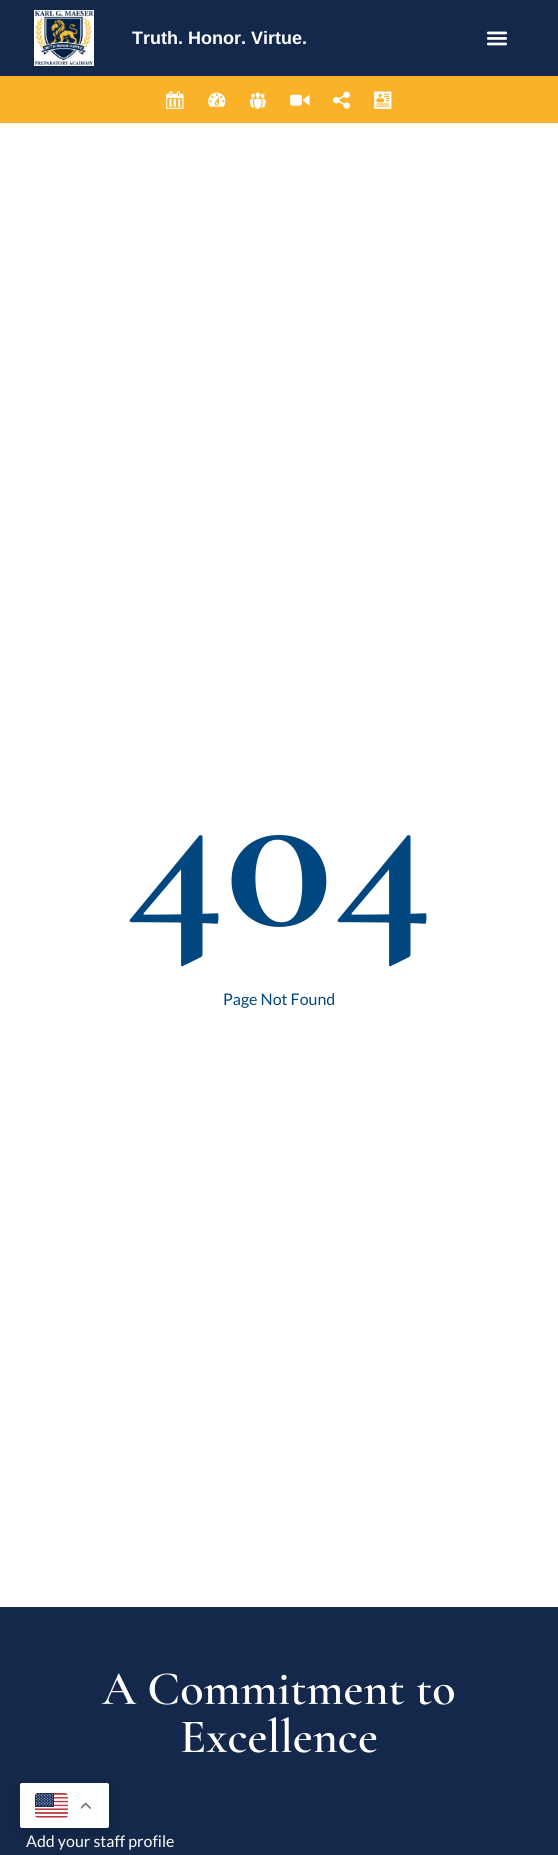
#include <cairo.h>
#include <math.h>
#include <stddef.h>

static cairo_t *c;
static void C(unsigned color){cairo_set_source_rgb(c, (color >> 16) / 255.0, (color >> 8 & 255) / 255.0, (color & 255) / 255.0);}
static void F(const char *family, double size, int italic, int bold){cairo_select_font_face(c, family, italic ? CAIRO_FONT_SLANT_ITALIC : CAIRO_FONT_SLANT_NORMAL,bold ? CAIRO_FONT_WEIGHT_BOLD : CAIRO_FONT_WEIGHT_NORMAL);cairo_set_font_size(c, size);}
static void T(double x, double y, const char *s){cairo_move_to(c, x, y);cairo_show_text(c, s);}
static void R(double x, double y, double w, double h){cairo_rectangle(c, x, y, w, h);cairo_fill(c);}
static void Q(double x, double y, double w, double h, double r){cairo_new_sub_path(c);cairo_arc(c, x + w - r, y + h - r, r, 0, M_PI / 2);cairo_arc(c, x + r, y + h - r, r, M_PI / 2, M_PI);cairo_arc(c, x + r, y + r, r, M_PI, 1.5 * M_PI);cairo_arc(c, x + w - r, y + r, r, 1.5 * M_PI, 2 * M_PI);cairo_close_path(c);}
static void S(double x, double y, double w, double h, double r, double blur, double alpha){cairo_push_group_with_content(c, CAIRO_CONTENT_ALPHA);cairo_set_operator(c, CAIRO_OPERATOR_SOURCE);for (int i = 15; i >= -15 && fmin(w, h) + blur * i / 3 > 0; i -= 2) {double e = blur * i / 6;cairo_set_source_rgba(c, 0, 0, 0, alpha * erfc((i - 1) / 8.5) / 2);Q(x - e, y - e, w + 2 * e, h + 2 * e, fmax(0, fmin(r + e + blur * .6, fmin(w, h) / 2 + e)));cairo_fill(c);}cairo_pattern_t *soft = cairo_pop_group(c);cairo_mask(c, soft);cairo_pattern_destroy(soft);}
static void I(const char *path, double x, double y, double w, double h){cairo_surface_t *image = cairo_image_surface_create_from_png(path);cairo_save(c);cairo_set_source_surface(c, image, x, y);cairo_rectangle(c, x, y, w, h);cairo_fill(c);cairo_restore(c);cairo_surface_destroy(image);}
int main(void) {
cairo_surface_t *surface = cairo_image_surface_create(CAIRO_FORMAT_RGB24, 558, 1855);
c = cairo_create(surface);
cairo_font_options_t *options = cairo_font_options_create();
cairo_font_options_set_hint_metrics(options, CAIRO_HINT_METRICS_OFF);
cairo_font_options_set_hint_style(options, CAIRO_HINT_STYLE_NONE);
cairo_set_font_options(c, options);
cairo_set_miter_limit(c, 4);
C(0xffffff);
cairo_paint(c);
C(0x14284b);
R(0,0,558,76);
I("1.png",34,10,60,56);
F("Liberation Sans",18,0,1);
C(0xffffff);
T(132,44,"Truth. Honor. Virtue.");
I("2.png",486,31,22,15);
C(0xfab329);
R(0,76,558,47);
I("3.png",166,91,18,18);
I("4.png",208,92,18,15);
I("5.png",249,92,17,17);
I("6.png",290,94,20,12);
I("7.png",333,91,17,18);
I("8.png",374,91,18,18);
F("Cormorant Garamond",223,0,1);
C(0x00467f);
T(124,924,"404");
F("Lato",16,0,0);
T(223,1005,"Page Not Found");
C(0x14284b);
R(0,1607,558,248);
F("Cormorant Garamond SemiBold",48,0,0);
C(0xffffff);
T(102,1704,"A Commitment to");
T(180,1752,"Excellence");
F("Lato",16,0,0);
T(26,1847,"Add your staff profile");
C(0x000000);
S(20,1788,89,45,2,7.5,.15);
C(0xffffff);
Q(20,1783,89,45,2);
cairo_fill(c);
I("9.png",35,1793,33,25);
I("10.png",81,1802,10,7);
cairo_surface_write_to_png(surface, "o.png");
cairo_font_options_destroy(options);
cairo_destroy(c);
cairo_surface_destroy(surface);
return 0;
}
